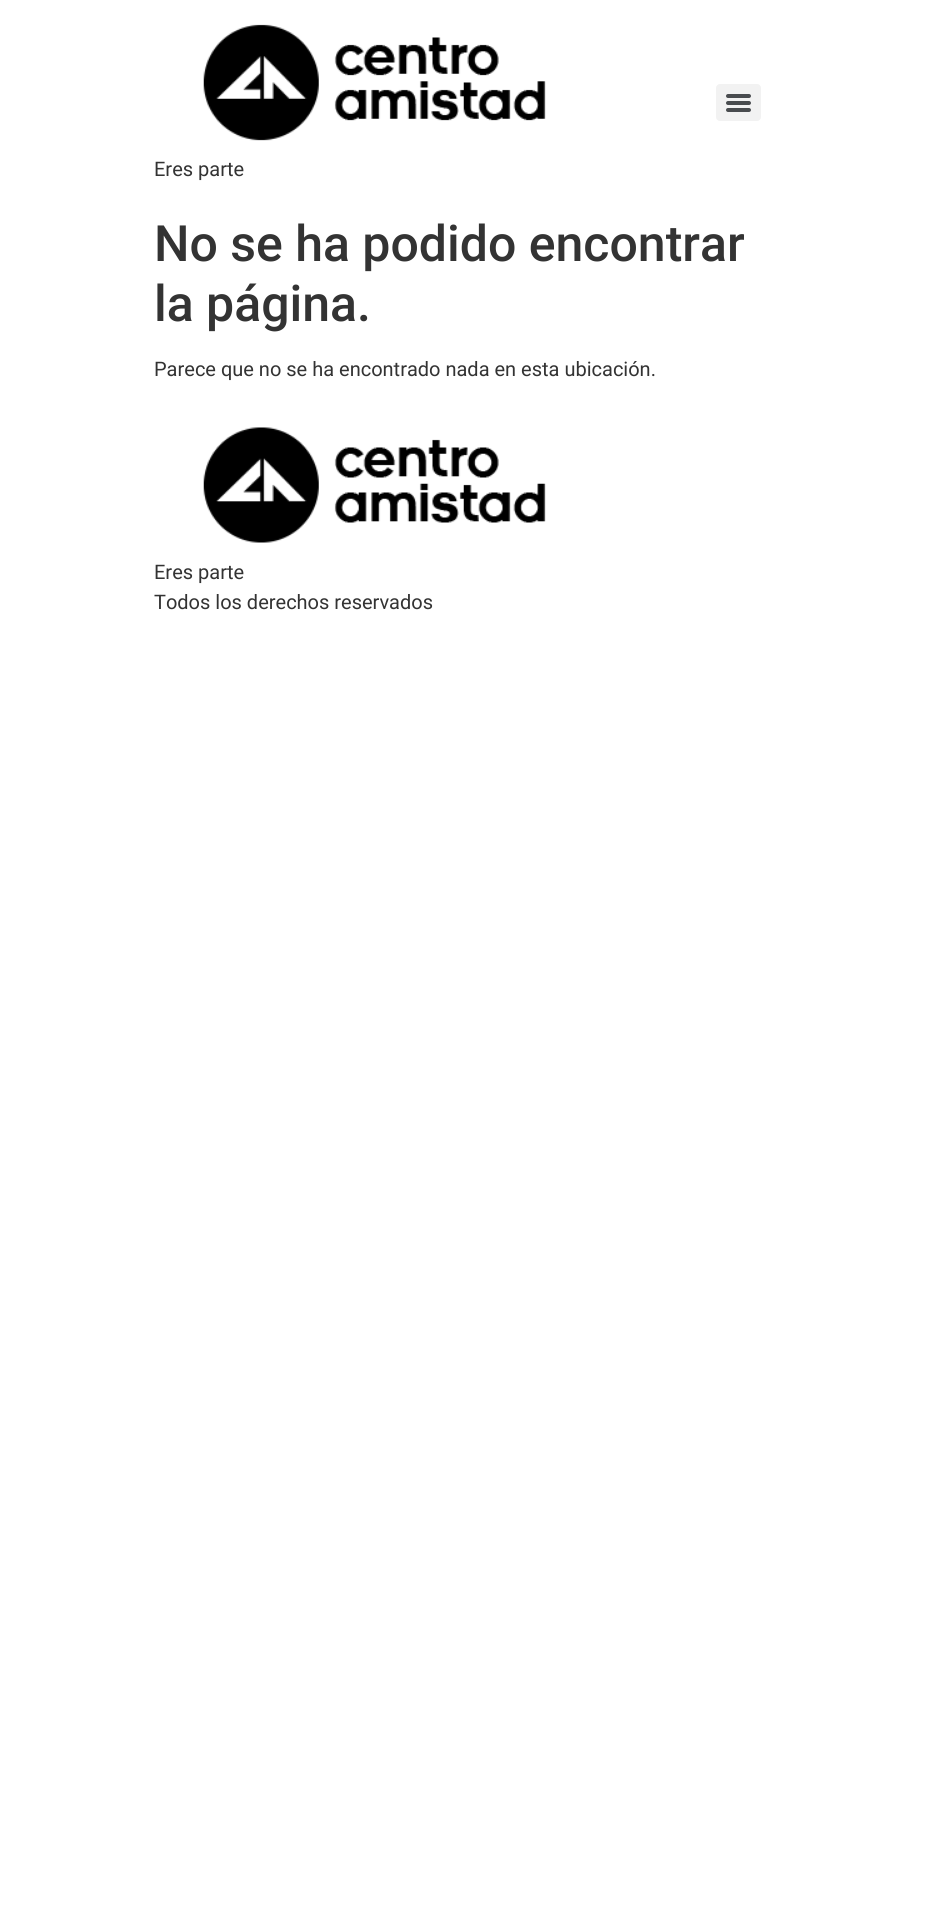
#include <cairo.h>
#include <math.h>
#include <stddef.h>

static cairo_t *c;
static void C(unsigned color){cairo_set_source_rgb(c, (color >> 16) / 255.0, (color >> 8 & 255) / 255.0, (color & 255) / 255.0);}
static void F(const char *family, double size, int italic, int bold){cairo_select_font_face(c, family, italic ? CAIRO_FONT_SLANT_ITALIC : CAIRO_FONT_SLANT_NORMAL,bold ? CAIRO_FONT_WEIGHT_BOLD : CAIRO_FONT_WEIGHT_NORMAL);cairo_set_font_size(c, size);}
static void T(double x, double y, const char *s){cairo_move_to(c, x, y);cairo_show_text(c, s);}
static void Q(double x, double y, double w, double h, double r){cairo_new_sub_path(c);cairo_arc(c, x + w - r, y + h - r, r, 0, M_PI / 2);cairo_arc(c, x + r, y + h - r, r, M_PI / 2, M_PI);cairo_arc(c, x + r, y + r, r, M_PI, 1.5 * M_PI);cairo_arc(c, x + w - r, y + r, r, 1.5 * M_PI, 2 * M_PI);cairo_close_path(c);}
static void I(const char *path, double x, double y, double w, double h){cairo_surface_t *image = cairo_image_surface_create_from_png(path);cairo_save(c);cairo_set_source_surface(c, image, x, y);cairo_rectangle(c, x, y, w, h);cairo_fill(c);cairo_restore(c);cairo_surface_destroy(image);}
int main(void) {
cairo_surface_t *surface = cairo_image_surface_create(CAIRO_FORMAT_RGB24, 933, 1905);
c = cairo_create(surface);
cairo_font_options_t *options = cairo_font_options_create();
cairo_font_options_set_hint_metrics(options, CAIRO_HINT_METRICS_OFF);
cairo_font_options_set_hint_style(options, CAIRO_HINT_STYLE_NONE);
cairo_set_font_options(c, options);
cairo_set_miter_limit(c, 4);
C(0xffffff);
cairo_paint(c);
C(0xf2f2f2);
Q(716,84,45,37,4);
cairo_fill(c);
C(0x494c4f);
Q(726,101,25,4,2);
cairo_fill(c);
Q(726,94,25,4,2);
cairo_fill(c);
Q(726,108,25,4,2);
cairo_fill(c);
I("1.png",203,24,343,117);
F("Roboto",20,0,0);
C(0x333333);
T(154,176,"Eres parte");
F("Roboto Medium",50,0,0);
T(154,261,"No se ha podido encontrar");
T(154,321,"la página.");
F("Roboto",20,0,0);
T(154,376,"Parece que no se ha encontrado nada en esta ubicación.");
I("2.png",203,427,343,116);
T(154,579,"Eres parte");
T(154,609,"Todos los derechos reservados");
cairo_surface_write_to_png(surface, "o.png");
cairo_font_options_destroy(options);
cairo_destroy(c);
cairo_surface_destroy(surface);
return 0;
}
